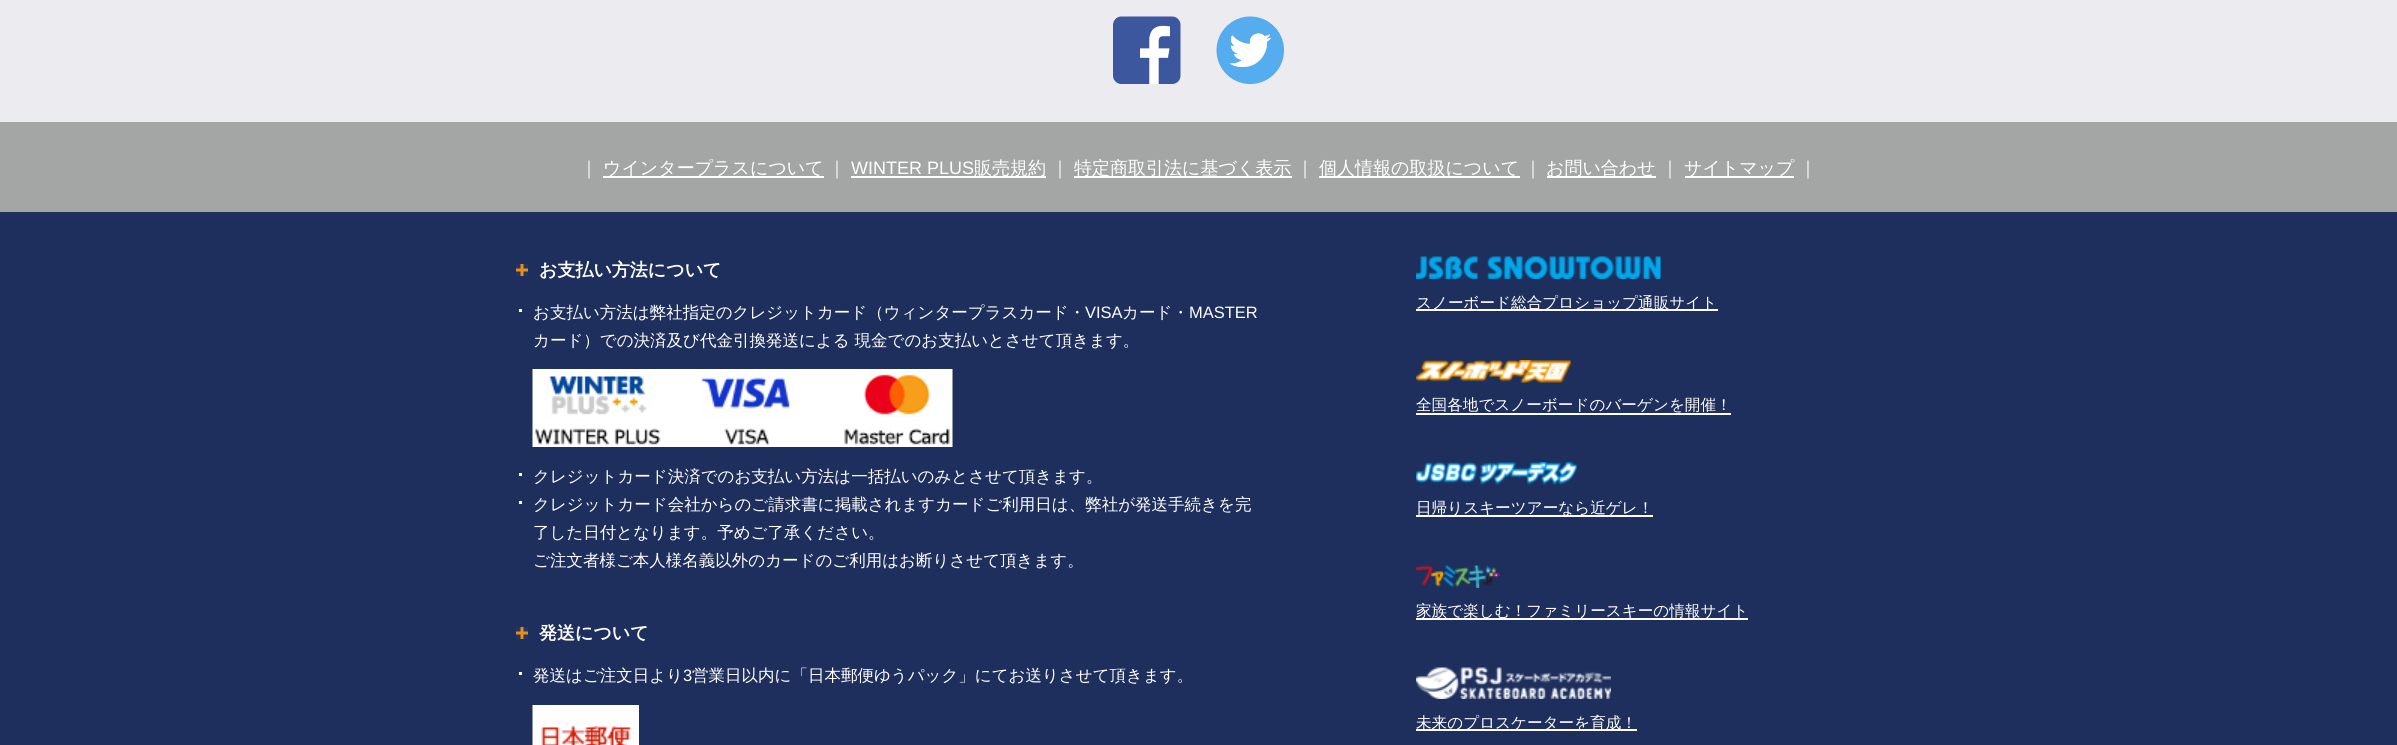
#include <cairo.h>
#include <math.h>
#include <stddef.h>

static cairo_t *c;
static void C(unsigned color){cairo_set_source_rgb(c, (color >> 16) / 255.0, (color >> 8 & 255) / 255.0, (color & 255) / 255.0);}
static void F(const char *family, double size, int italic, int bold){cairo_select_font_face(c, family, italic ? CAIRO_FONT_SLANT_ITALIC : CAIRO_FONT_SLANT_NORMAL,bold ? CAIRO_FONT_WEIGHT_BOLD : CAIRO_FONT_WEIGHT_NORMAL);cairo_set_font_size(c, size);}
static void T(double x, double y, const char *s){cairo_move_to(c, x, y);cairo_show_text(c, s);}
static void R(double x, double y, double w, double h){cairo_rectangle(c, x, y, w, h);cairo_fill(c);}
static void I(const char *path, double x, double y, double w, double h){cairo_surface_t *image = cairo_image_surface_create_from_png(path);cairo_save(c);cairo_set_source_surface(c, image, x, y);cairo_rectangle(c, x, y, w, h);cairo_fill(c);cairo_restore(c);cairo_surface_destroy(image);}
int main(void) {
cairo_surface_t *surface = cairo_image_surface_create(CAIRO_FORMAT_RGB24, 2397, 745);
c = cairo_create(surface);
cairo_font_options_t *options = cairo_font_options_create();
cairo_font_options_set_hint_metrics(options, CAIRO_HINT_METRICS_OFF);
cairo_font_options_set_hint_style(options, CAIRO_HINT_STYLE_NONE);
cairo_set_font_options(c, options);
cairo_set_miter_limit(c, 4);
C(0x1e2f5d);
cairo_paint(c);
C(0xecebf0);
R(0,0,2397,122);
I("1.png",1113,16,68,68);
I("2.png",1216,16,68,68);
C(0xa4a6a6);
R(0,122,2397,90);
F("WenQuanYi Zen Hei Medium",18,0,0);
C(0xffffff);
T(580,174,"｜");
R(603,176,221,2);
T(603,174,"ウインタープラスについて");
T(828,174,"｜");
F("Liberation Sans",18,0,0);
T(851,174,"WINTER PLUS");
R(851,176,195,2);
F("WenQuanYi Zen Hei Medium",18,0,0);
T(974,174,"販売規約");
T(1051,174,"｜");
R(1074,176,218,2);
T(1074,174,"特定商取引法に基づく表示");
T(1296,174,"｜");
R(1319,176,201,2);
T(1319,174,"個人情報の取扱について");
T(1524,174,"｜");
R(1547,176,109,2);
T(1546,174,"お問い合わせ");
T(1661,174,"｜");
R(1685,176,109,2);
T(1684,174,"サイトマップ");
T(1799,174,"｜");
I("3.png",516,264,12,12);
F("WenQuanYi Zen Hei",18,0,1);
T(539,276,"お支払い方法について");
R(519,309,3,3);
F("WenQuanYi Zen Hei Medium",16.5,0,0);
T(533,318,"お支払い方法は弊社指定のクレジットカード（ウィンタープラスカード・");
F("Liberation Sans",16.5,0,0);
T(1085,318,"VISA");
F("WenQuanYi Zen Hei Medium",16.5,0,0);
T(1122,318,"カード・");
F("Liberation Sans",16.5,0,0);
T(1189,318,"MASTER");
F("WenQuanYi Zen Hei Medium",16.5,0,0);
T(533,346,"カード）での決済及び代金引換発送による 現金でのお支払いとさせて頂きます。");
I("4.png",532,369,421,78);
R(519,473,3,3);
T(533,482,"クレジットカード決済でのお支払い方法は一括払いのみとさせて頂きます。");
R(519,501,3,3);
T(533,510,"クレジットカード会社からのご請求書に掲載されますカードご利用日は、弊社が発送手続きを完");
T(533,538,"了した日付となります。予めご了承ください。");
T(533,566,"ご注文者様ご本人様名義以外のカードのご利用はお断りさせて頂きます。");
I("3.png",516,627,12,12);
F("WenQuanYi Zen Hei",18,0,1);
T(539,639,"発送について");
R(519,672,3,3);
F("WenQuanYi Zen Hei Medium",16.5,0,0);
T(533,681,"発送はご注文日より");
F("Liberation Sans",16.5,0,0);
T(683,681,"3");
F("WenQuanYi Zen Hei Medium",16.5,0,0);
T(692,681,"営業日以内に「日本郵便ゆうパック」にてお送りさせて頂きます。");
I("5.png",532,705,107,40);
I("6.png",1416,256,245,23);
R(1416,309,302,2);
F("WenQuanYi Zen Hei Medium",15.6,0,0);
T(1416,308,"スノーボード総合プロショップ通販サイト");
I("7.png",1416,360,155,23);
T(1416,410,"全国各地でスノーボードのバーゲンを開催！");
R(1416,413,315,2);
I("8.png",1416,462,161,23);
R(1416,515,237,2);
T(1416,513,"日帰りスキーツアーなら近ゲレ！");
I("9.png",1416,565,84,23);
R(1416,618,332,2);
T(1416,616,"家族で楽しむ！ファミリースキーの情報サイト");
I("10.png",1416,667,195,32);
R(1416,729,221,2);
T(1416,728,"未来のプロスケーターを育成！");
cairo_surface_write_to_png(surface, "o.png");
cairo_font_options_destroy(options);
cairo_destroy(c);
cairo_surface_destroy(surface);
return 0;
}
